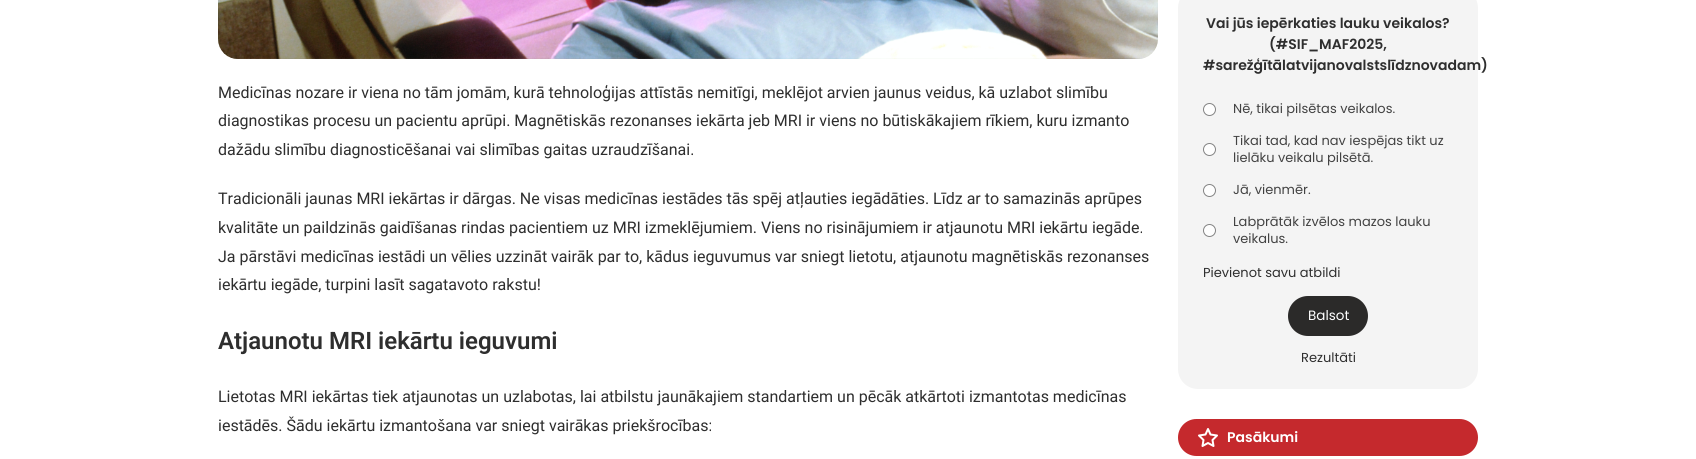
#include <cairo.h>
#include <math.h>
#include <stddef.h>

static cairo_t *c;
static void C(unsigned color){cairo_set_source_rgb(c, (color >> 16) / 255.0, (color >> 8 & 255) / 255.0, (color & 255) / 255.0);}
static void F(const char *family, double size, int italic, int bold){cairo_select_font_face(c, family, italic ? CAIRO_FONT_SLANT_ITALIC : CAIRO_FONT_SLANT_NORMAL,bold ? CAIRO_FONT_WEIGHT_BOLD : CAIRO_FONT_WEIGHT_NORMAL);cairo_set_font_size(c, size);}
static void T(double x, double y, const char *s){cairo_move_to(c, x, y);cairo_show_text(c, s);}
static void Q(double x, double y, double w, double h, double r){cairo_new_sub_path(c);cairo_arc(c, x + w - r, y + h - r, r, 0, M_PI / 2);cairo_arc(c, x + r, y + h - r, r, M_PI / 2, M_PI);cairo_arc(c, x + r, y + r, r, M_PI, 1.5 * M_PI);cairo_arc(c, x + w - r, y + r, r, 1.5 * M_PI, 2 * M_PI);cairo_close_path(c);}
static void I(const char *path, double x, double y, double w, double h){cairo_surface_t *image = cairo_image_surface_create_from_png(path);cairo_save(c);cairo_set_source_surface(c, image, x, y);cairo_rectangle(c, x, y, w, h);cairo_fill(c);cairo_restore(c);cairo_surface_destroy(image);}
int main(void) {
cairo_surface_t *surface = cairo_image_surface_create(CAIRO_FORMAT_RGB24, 1696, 459);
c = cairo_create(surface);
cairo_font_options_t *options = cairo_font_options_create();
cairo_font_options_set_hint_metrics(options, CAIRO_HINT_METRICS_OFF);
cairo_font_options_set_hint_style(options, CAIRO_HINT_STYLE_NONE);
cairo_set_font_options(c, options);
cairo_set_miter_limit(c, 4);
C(0xffffff);
cairo_paint(c);
I("1.png",218,0,940,59);
F("Roboto",16,0,0);
C(0x2e2e2e);
T(218,98,"Medicīnas nozare ir viena no tām jomām, kurā tehnoloģijas attīstās nemitīgi, meklējot arvien jaunus veidus, kā uzlabot slimību");
T(218,126,"diagnostikas procesu un pacientu aprūpi. Magnētiskās rezonanses iekārta jeb MRI ir viens no būtiskākajiem rīkiem, kuru izmanto");
T(218,155,"dažādu slimību diagnosticēšanai vai slimības gaitas uzraudzīšanai.");
T(218,204,"Tradicionāli jaunas MRI iekārtas ir dārgas. Ne visas medicīnas iestādes tās spēj atļauties iegādāties. Līdz ar to samazinās aprūpes");
T(218,233,"kvalitāte un paildzinās gaidīšanas rindas pacientiem uz MRI izmeklējumiem. Viens no risinājumiem ir atjaunotu MRI iekārtu iegāde.");
T(218,262,"Ja pārstāvi medicīnas iestādi un vēlies uzzināt vairāk par to, kādus ieguvumus var sniegt lietotu, atjaunotu magnētiskās rezonanses");
T(218,290,"iekārtu iegāde, turpini lasīt sagatavoto rakstu!");
F("Roboto SemiBold",24,0,0);
T(218,349,"Atjaunotu MRI iekārtu ieguvumi");
F("Roboto",16,0,0);
T(218,402,"Lietotas MRI iekārtas tiek atjaunotas un uzlabotas, lai atbilstu jaunākajiem standartiem un pēcāk atkārtoti izmantotas medicīnas");
T(218,431,"iestādēs. Šādu iekārtu izmantošana var sniegt vairākas priekšrocības:");
C(0xf4f4f4);
Q(1178,-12,300,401,20);
cairo_fill(c);
F("Poppins SemiBold",14,0,0);
C(0x2e2e2e);
T(1206,28,"Vai jūs iepērkaties lauku veikalos?");
T(1269,49,"(#SIF_MAF2025,");
T(1203,70,"#sarežģītālatvijanovalstslīdznovadam)");
C(0xfefefe);
cairo_new_path(c);
cairo_arc(c,1209.5,109.5,6,0,2 * M_PI);
cairo_fill_preserve(c);
C(0x838383);
cairo_set_line_width(c,1);
cairo_stroke(c);
F("Poppins",13,0,0);
C(0x424242);
T(1233,113,"Nē, tikai pilsētas veikalos.");
C(0xfefefe);
cairo_new_path(c);
cairo_arc(c,1209.5,149.5,6,0,2 * M_PI);
cairo_fill_preserve(c);
C(0x838383);
cairo_stroke(c);
C(0x424242);
T(1233,145,"Tikai tad, kad nav iespējas tikt uz");
T(1233,162,"lielāku veikalu pilsētā.");
C(0xfefefe);
cairo_new_path(c);
cairo_arc(c,1209.5,190.5,6,0,2 * M_PI);
cairo_fill_preserve(c);
C(0x838383);
cairo_stroke(c);
C(0x424242);
T(1233,194,"Jā, vienmēr.");
C(0xfefefe);
cairo_new_path(c);
cairo_arc(c,1209.5,230.5,6,0,2 * M_PI);
cairo_fill_preserve(c);
C(0x838383);
cairo_stroke(c);
C(0x424242);
T(1233,226,"Labprātāk izvēlos mazos lauku");
T(1233,243,"veikalus.");
C(0x2e2e2e);
T(1203,277,"Pievienot savu atbildi");
C(0x2b2a29);
Q(1288,296,80,40,20);
cairo_fill(c);
F("Poppins",13.5,0,0);
C(0xffffff);
T(1308,320,"Balsot");
F("Poppins",13,0,0);
C(0x2e2e2e);
T(1301,362,"Rezultāti");
C(0xc5292d);
Q(1178,419,300,37,18.5);
cairo_fill(c);
cairo_new_path(c);
cairo_move_to(c,1208,429);
cairo_line_to(c,1210.5,434.5);
cairo_line_to(c,1217,435.5);
cairo_line_to(c,1212.5,440);
cairo_line_to(c,1213.5,446);
cairo_line_to(c,1208,443);
cairo_line_to(c,1202.5,446);
cairo_line_to(c,1203.5,440);
cairo_line_to(c,1199,435.5);
cairo_line_to(c,1205.5,434.5);
cairo_close_path(c);
C(0xffffff);
cairo_set_line_width(c,2);
cairo_set_line_join(c,CAIRO_LINE_JOIN_ROUND);
cairo_stroke(c);
F("Poppins SemiBold",14,0,0);
T(1227,442,"Pasākumi");
cairo_surface_write_to_png(surface, "o.png");
cairo_font_options_destroy(options);
cairo_destroy(c);
cairo_surface_destroy(surface);
return 0;
}
